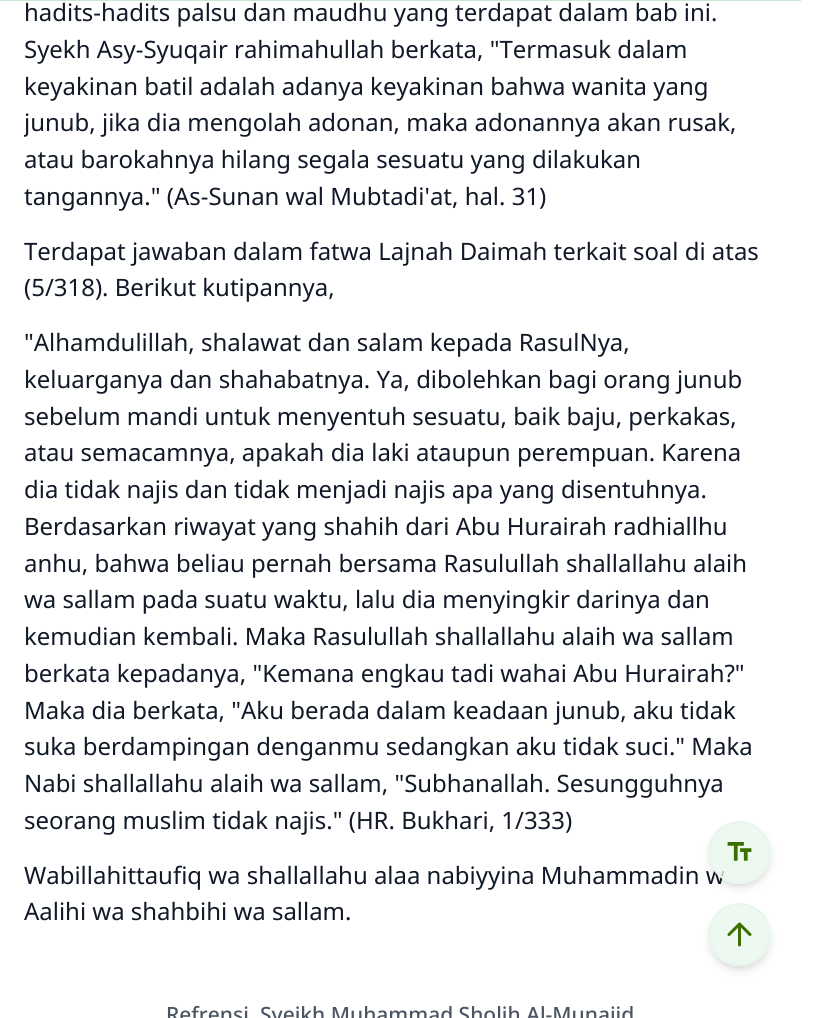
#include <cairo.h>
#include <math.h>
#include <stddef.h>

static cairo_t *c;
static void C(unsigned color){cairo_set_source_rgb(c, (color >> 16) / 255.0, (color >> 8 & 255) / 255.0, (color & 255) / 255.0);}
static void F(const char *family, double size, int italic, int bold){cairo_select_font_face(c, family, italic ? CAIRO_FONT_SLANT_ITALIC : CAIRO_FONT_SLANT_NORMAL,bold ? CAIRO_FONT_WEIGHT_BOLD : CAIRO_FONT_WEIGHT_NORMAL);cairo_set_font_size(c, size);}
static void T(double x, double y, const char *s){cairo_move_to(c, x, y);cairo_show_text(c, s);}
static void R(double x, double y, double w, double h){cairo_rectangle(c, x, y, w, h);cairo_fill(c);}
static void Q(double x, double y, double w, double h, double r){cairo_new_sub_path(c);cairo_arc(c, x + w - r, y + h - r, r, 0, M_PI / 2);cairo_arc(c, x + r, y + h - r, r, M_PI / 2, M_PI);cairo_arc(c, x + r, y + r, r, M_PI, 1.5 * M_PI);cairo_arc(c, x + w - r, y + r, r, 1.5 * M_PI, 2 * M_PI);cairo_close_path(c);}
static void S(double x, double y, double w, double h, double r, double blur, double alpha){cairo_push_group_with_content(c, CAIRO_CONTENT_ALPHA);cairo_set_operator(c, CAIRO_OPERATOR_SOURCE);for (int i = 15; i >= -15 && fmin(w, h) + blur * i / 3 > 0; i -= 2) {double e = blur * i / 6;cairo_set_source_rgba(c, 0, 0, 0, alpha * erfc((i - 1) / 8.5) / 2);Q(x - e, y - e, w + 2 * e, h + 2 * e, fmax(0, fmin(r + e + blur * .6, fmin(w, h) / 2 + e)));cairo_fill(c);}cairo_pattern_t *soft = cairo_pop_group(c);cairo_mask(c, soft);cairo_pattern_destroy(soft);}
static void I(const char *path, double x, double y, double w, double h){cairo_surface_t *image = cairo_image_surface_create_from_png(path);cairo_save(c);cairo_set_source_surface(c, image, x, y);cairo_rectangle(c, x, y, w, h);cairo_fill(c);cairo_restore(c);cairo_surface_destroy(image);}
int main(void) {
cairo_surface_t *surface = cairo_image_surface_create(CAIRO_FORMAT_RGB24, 823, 1018);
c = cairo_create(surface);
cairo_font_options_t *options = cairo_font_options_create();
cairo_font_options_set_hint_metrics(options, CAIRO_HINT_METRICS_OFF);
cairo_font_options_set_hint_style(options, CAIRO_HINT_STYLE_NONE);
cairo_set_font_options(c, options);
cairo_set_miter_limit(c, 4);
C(0xffffff);
cairo_paint(c);
C(0xc4ead1);
R(0,0,801,1);
F("Noto Sans",23.95,0,0);
C(0x111928);
T(24,21,"hadits-hadits palsu dan maudhu yang terdapat dalam bab ini.");
T(24,58,"Syekh Asy-Syuqair rahimahullah berkata, \"Termasuk dalam");
T(24,95,"keyakinan batil adalah adanya keyakinan bahwa wanita yang");
cairo_save(c);
cairo_rectangle(c,24,0,746,948);
cairo_clip(c);
T(24,131,"junub, jika dia mengolah adonan, maka adonannya akan rusak,");
cairo_restore(c);
T(24,168,"atau barokahnya hilang segala sesuatu yang dilakukan");
T(24,205,"tangannya.\" (As-Sunan wal Mubtadi'at, hal. 31)");
T(24,260,"Terdapat jawaban dalam fatwa Lajnah Daimah terkait soal di atas");
T(24,296,"(5/318). Berikut kutipannya,");
T(24,351,"\"Alhamdulillah, shalawat dan salam kepada RasulNya,");
T(24,388,"keluarganya dan shahabatnya. Ya, dibolehkan bagi orang junub");
T(24,425,"sebelum mandi untuk menyentuh sesuatu, baik baju, perkakas,");
T(24,461,"atau semacamnya, apakah dia laki ataupun perempuan. Karena");
T(24,498,"dia tidak najis dan tidak menjadi najis apa yang disentuhnya.");
T(24,535,"Berdasarkan riwayat yang shahih dari Abu Hurairah radhiallhu");
T(24,572,"anhu, bahwa beliau pernah bersama Rasulullah shallallahu alaih");
T(24,608,"wa sallam pada suatu waktu, lalu dia menyingkir darinya dan");
T(24,645,"kemudian kembali. Maka Rasulullah shallallahu alaih wa sallam");
T(24,682,"berkata kepadanya, \"Kemana engkau tadi wahai Abu Hurairah?\"");
T(24,719,"Maka dia berkata, \"Aku berada dalam keadaan junub, aku tidak");
T(24,755,"suka berdampingan denganmu sedangkan aku tidak suci.\" Maka");
T(24,792,"Nabi shallallahu alaih wa sallam, \"Subhanallah. Sesungguhnya");
T(24,829,"seorang muslim tidak najis.\" (HR. Bukhari, 1/333)");
T(24,884,"Wabillahittaufiq wa shallallahu alaa nabiyyina Muhammadin w");
T(24,920,"Aalihi wa shahbihi wa sallam.");
F("Noto Sans Medium",21,0,0);
C(0x4b5563);
T(166,1022,"Refrensi");
T(260,1022,"Syeikh Muhammad Sholih Al-Munajid");
cairo_save(c);
cairo_set_fill_rule(c,CAIRO_FILL_RULE_EVEN_ODD);
cairo_new_path(c);
cairo_move_to(c,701,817);
cairo_line_to(c,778,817);
cairo_line_to(c,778,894);
cairo_line_to(c,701,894);
cairo_close_path(c);
cairo_move_to(c,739.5,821);
cairo_curve_to(c,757,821,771,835,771,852.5);
cairo_curve_to(c,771,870,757,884,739.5,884);
cairo_curve_to(c,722,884,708,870,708,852.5);
cairo_curve_to(c,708,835,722,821,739.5,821);
cairo_close_path(c);
cairo_clip(c);
C(0x000000);
S(711,827,57,57,28.5,3,.1);
cairo_restore(c);
cairo_save(c);
cairo_set_fill_rule(c,CAIRO_FILL_RULE_EVEN_ODD);
cairo_new_path(c);
cairo_move_to(c,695,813);
cairo_line_to(c,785,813);
cairo_line_to(c,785,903);
cairo_line_to(c,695,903);
cairo_close_path(c);
cairo_move_to(c,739.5,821);
cairo_curve_to(c,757,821,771,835,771,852.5);
cairo_curve_to(c,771,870,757,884,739.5,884);
cairo_curve_to(c,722,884,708,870,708,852.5);
cairo_curve_to(c,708,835,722,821,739.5,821);
cairo_close_path(c);
cairo_clip(c);
C(0x000000);
S(710,828,60,60,30,4.5,.1);
cairo_restore(c);
cairo_set_source_rgba(c,0.906,0.965,0.925,0.8);
cairo_arc(c,739.5,852.5,30.5,0,2 * M_PI);
cairo_fill_preserve(c);
C(0xe7f6ec);
cairo_stroke(c);
I("1.png",727,842,25,19);
cairo_save(c);
cairo_set_fill_rule(c,CAIRO_FILL_RULE_EVEN_ODD);
cairo_new_path(c);
cairo_move_to(c,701,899);
cairo_line_to(c,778,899);
cairo_line_to(c,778,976);
cairo_line_to(c,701,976);
cairo_close_path(c);
cairo_move_to(c,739.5,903);
cairo_curve_to(c,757,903,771,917,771,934.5);
cairo_curve_to(c,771,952,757,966,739.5,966);
cairo_curve_to(c,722,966,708,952,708,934.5);
cairo_curve_to(c,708,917,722,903,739.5,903);
cairo_close_path(c);
cairo_clip(c);
C(0x000000);
S(711,909,57,57,28.5,3,.1);
cairo_restore(c);
cairo_save(c);
cairo_set_fill_rule(c,CAIRO_FILL_RULE_EVEN_ODD);
cairo_new_path(c);
cairo_move_to(c,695,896);
cairo_line_to(c,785,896);
cairo_line_to(c,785,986);
cairo_line_to(c,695,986);
cairo_close_path(c);
cairo_move_to(c,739.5,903);
cairo_curve_to(c,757,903,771,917,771,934.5);
cairo_curve_to(c,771,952,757,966,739.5,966);
cairo_curve_to(c,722,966,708,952,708,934.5);
cairo_curve_to(c,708,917,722,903,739.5,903);
cairo_close_path(c);
cairo_clip(c);
C(0x000000);
S(710,911,60,60,30,4.5,.1);
cairo_restore(c);
cairo_set_source_rgba(c,0.906,0.965,0.925,0.8);
cairo_arc(c,739.5,934.5,30.5,0,2 * M_PI);
cairo_fill_preserve(c);
C(0xe7f6ec);
cairo_stroke(c);
cairo_new_path(c);
cairo_move_to(c,729,934.5);
cairo_line_to(c,739.5,924);
cairo_line_to(c,750,934.5);
cairo_move_to(c,739.5,945);
cairo_line_to(c,739.5,924);
C(0x3c7101);
cairo_set_line_width(c,3);
cairo_set_line_cap(c,CAIRO_LINE_CAP_ROUND);
cairo_set_line_join(c,CAIRO_LINE_JOIN_ROUND);
cairo_stroke(c);
cairo_surface_write_to_png(surface, "o.png");
cairo_font_options_destroy(options);
cairo_destroy(c);
cairo_surface_destroy(surface);
return 0;
}
